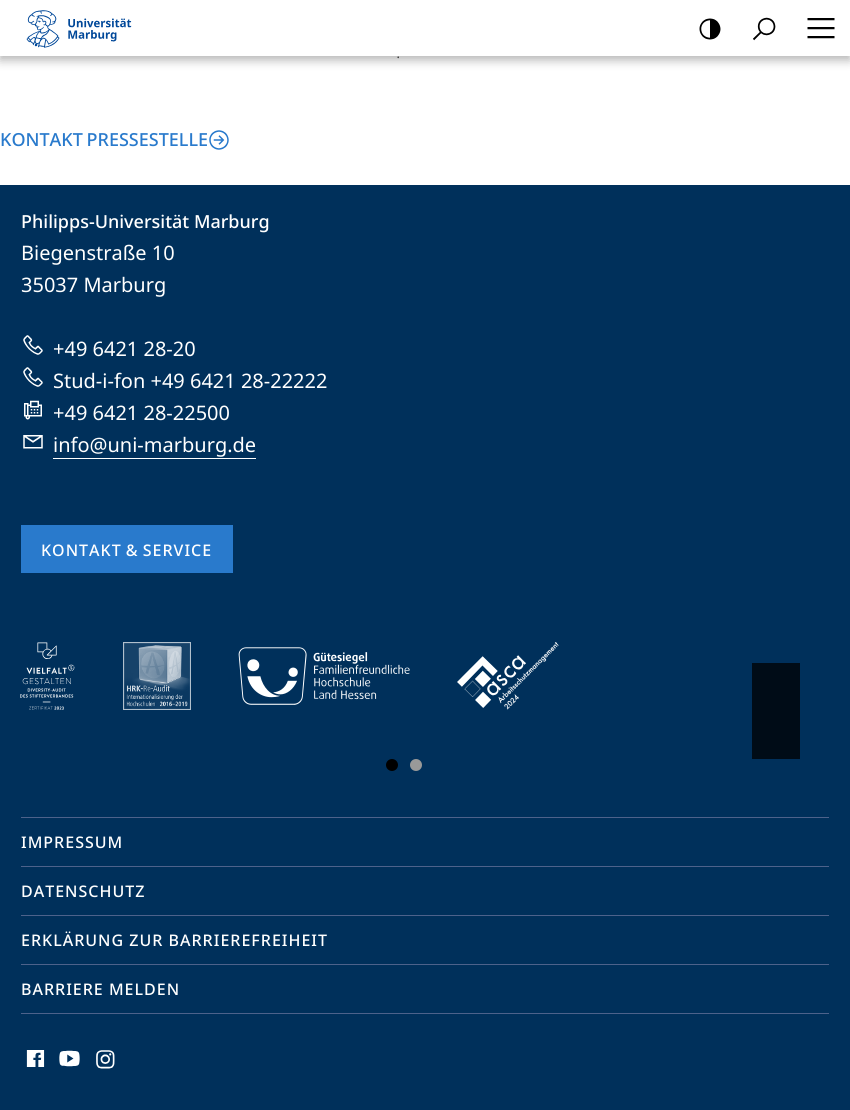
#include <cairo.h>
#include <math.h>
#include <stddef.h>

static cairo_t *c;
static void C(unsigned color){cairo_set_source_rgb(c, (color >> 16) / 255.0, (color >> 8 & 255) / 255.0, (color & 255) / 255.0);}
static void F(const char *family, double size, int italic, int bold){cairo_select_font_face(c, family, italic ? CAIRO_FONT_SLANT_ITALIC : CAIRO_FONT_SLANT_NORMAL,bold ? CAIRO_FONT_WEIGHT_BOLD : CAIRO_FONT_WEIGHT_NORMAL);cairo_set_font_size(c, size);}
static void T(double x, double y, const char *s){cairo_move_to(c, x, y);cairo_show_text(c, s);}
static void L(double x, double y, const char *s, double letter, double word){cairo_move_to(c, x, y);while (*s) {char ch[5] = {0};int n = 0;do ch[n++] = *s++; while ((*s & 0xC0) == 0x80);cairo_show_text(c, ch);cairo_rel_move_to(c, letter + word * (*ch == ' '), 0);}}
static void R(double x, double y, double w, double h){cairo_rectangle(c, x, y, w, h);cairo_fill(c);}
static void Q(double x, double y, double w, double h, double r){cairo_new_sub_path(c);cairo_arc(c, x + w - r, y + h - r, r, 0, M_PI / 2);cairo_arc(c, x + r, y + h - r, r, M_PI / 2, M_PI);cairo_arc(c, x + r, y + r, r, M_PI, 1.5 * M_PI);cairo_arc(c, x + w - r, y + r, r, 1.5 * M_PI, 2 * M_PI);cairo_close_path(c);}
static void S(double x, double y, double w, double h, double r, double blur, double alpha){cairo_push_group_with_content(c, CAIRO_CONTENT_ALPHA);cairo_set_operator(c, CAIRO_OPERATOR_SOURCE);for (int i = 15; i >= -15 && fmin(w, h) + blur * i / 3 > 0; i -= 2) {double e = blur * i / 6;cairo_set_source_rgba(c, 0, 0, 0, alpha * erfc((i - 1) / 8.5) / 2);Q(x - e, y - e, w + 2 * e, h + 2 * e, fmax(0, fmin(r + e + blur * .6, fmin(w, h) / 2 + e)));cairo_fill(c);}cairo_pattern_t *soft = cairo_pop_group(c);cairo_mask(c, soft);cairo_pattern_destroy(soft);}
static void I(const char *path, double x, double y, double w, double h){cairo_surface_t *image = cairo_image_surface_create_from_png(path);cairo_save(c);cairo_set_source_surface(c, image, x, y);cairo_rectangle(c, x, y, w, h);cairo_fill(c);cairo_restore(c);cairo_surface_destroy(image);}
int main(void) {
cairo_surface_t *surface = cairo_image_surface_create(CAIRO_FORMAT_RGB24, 850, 1110);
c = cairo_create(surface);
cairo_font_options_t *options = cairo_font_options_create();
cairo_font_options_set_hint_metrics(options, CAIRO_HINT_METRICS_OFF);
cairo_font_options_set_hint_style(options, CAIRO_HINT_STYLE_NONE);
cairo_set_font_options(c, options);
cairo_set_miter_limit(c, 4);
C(0xffffff);
cairo_paint(c);
C(0x000000);
S(0,4,850,56,0,5,.3);
C(0xffffff);
R(0,0,850,56);
I("1.png",26,10,106,38);
I("2.png",699,18,22,22);
I("3.png",753,17,23,24);
I("4.png",807,18,28,21);
F("Noto Sans Light",18,0,0);
C(0x333333);
T(396,58,".");
F("Noto Sans Medium",18,0,0);
C(0x297acc);
L(0,146,"KONTAKT PRESSESTELLE",0,-1);
I("5.png",209,130,20,20);
C(0x00305b);
R(0,185,850,925);
C(0xffffff);
T(21,228,"Philipps-Universität Marburg");
F("Noto Sans",20,0,0);
T(21,260,"Biegenstraße 10");
T(21,292,"35037 Marburg");
I("6.png",23,335,20,20);
T(53,356,"+49 6421 28-20");
I("6.png",23,367,20,20);
T(53,388,"Stud-i-fon +49 6421 28-22222");
I("7.png",24,400,18,20);
T(53,420,"+49 6421 28-22500");
I("8.png",23,435,20,14);
T(53,452,"info@uni-marburg.de");
R(53,458,203,1);
C(0x297acc);
R(21,525,212,48);
F("Noto Sans Medium",16,0,0);
C(0xffffff);
L(41,556,"KONTAKT & SERVICE",1,-1);
I("9.png",20,642,55,68);
I("10.png",123,642,68,68);
I("11.png",238,647,172,58);
I("12.png",457,642,102,68);
C(0x000c17);
R(752,663,48,96);
C(0x000000);
cairo_arc(c,392,765,6,0,2 * M_PI);
cairo_fill(c);
C(0x999999);
cairo_arc(c,416,765,6,0,2 * M_PI);
cairo_fill(c);
C(0x4d628b);
R(21,817,808,1);
R(21,866,808,1);
C(0xffffff);
L(21,848,"IMPRESSUM",1,0);
C(0x4d628b);
R(21,915,808,1);
C(0xffffff);
L(21,897,"DATENSCHUTZ",1,0);
C(0x4d628b);
R(21,964,808,1);
C(0xffffff);
L(21,946,"ERKLÄRUNG ZUR BARRIEREFREIHEIT",1,0);
C(0x4d628b);
R(21,1013,808,1);
C(0xffffff);
L(21,995,"BARRIERE MELDEN",1,0);
I("13.png",26,1050,19,17);
I("14.png",59,1050,21,17);
I("15.png",96,1050,19,19);
cairo_surface_write_to_png(surface, "o.png");
cairo_font_options_destroy(options);
cairo_destroy(c);
cairo_surface_destroy(surface);
return 0;
}
